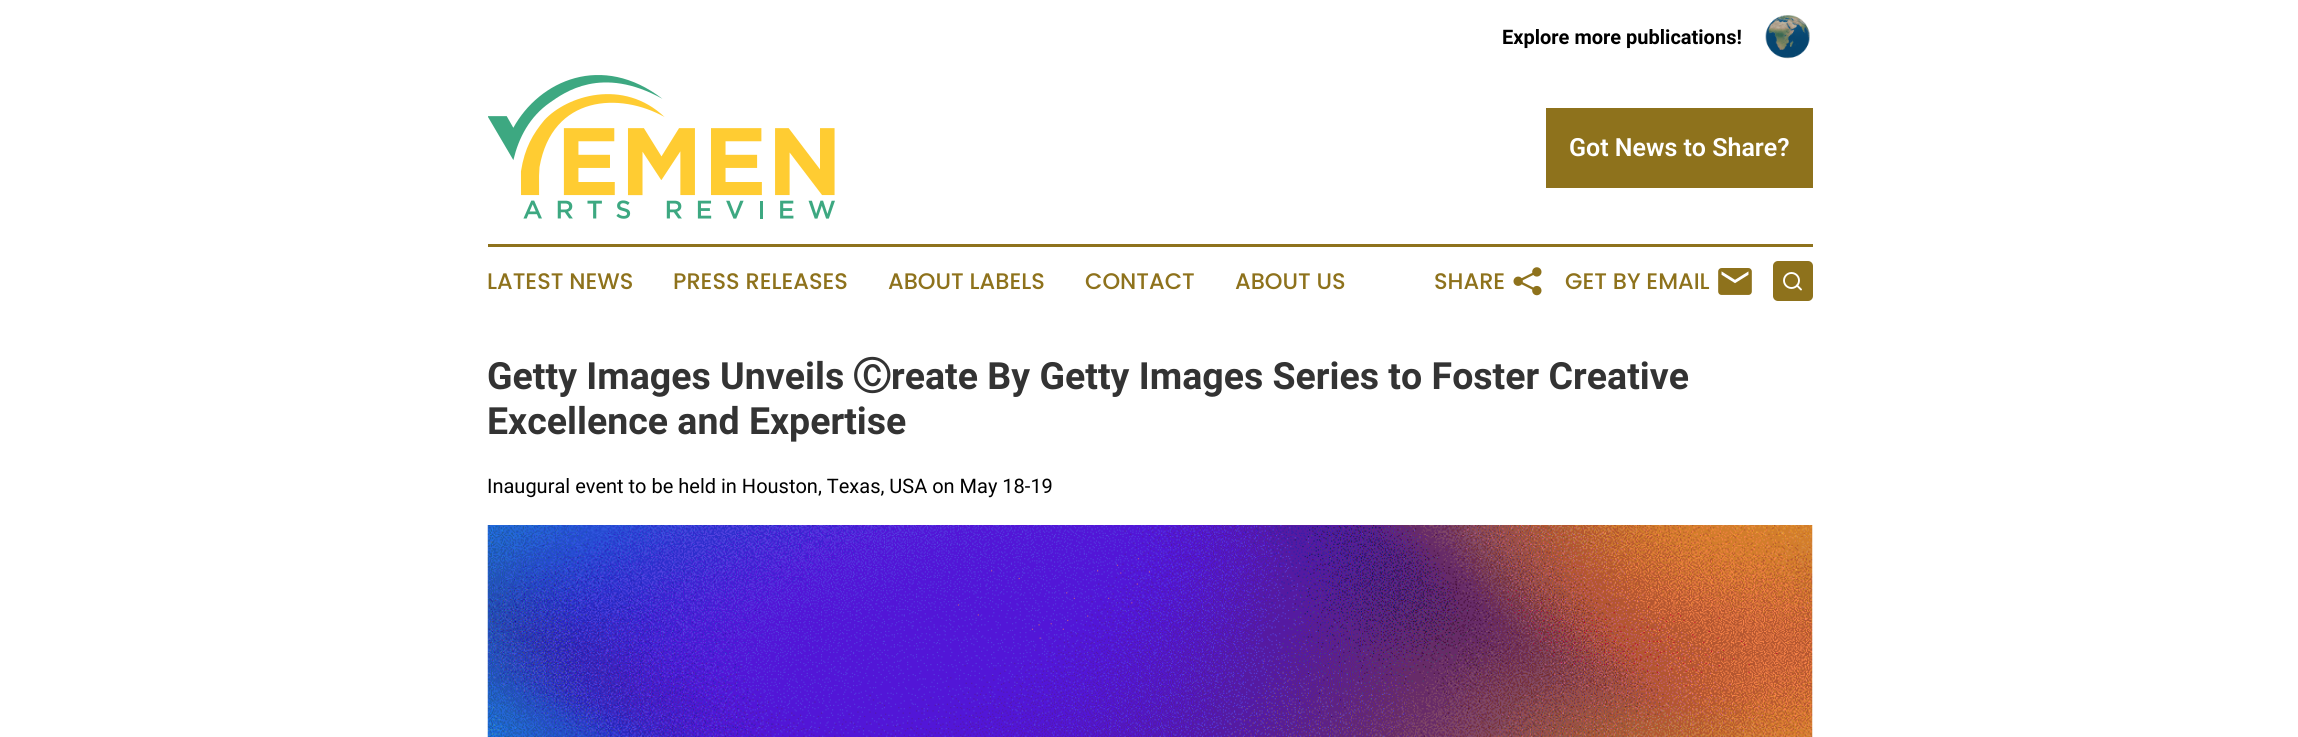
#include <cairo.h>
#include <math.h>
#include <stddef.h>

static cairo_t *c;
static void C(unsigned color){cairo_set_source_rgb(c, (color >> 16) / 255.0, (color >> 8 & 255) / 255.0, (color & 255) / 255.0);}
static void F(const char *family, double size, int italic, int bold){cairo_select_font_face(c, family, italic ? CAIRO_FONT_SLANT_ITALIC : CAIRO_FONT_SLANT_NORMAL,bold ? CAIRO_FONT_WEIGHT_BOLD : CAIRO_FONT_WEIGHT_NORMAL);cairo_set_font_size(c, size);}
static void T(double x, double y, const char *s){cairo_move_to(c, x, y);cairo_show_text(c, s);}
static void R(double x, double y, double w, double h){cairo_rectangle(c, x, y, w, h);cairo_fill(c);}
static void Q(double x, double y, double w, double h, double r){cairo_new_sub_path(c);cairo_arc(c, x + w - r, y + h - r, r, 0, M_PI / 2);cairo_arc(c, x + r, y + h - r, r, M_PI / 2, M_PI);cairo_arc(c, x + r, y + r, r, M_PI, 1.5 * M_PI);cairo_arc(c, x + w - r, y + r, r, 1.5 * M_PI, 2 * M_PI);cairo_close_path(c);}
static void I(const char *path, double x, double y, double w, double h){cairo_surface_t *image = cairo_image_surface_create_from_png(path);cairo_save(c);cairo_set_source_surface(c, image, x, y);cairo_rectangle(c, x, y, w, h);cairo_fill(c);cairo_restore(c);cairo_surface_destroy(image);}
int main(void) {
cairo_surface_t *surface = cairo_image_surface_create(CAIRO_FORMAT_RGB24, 2298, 737);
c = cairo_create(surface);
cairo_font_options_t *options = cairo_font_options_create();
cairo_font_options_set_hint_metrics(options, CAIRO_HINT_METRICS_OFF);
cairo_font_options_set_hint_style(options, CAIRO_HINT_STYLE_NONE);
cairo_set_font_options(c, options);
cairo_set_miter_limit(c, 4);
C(0xffffff);
cairo_paint(c);
F("Roboto",20,0,1);
C(0x000000);
T(1502,44,"Explore more publications!");
I("1.png",1765,15,45,44);
I("2.png",488,75,347,144);
C(0x8e721c);
R(1546,108,267,80);
F("Roboto SemiBold",25,0,0);
C(0xffffff);
T(1569,156,"Got News to Share?");
C(0x8e721c);
R(488,244,1325,3);
F("Poppins Medium",22.5,0,0);
T(487,289,"LATEST NEWS");
T(673,289,"PRESS RELEASES");
T(888,289,"ABOUT LABELS");
T(1085,289,"CONTACT");
T(1235,289,"ABOUT US");
T(1434,289,"SHARE");
I("3.png",1513,267,29,29);
T(1565,289,"GET BY EMAIL");
I("4.png",1718,268,34,27);
Q(1773,261,40,40,5);
cairo_fill(c);
cairo_arc(c,1791.5,280.5,7.5,0,2 * M_PI);
C(0xffffff);
cairo_set_line_width(c,1.9);
cairo_stroke(c);
cairo_new_path(c);
cairo_move_to(c,1801,289.5);
cairo_line_to(c,1797,285.5);
cairo_set_line_cap(c,CAIRO_LINE_CAP_ROUND);
cairo_set_line_join(c,CAIRO_LINE_JOIN_ROUND);
cairo_stroke(c);
F("Roboto",37.5,0,1);
C(0x333333);
T(487,389,"Getty Images Unveils");
F("WenQuanYi Zen Hei",37.5,0,1);
T(853,389,"Ⓒ");
F("Roboto",37.5,0,1);
T(891,389,"reate By Getty Images Series to Foster Creative");
T(487,434,"Excellence and Expertise");
F("Roboto",20,0,0);
C(0x000000);
T(487,493,"Inaugural event to be held in Houston, Texas, USA on May 18-19");
I("5.png",487,525,1326,212);
cairo_surface_write_to_png(surface, "o.png");
cairo_font_options_destroy(options);
cairo_destroy(c);
cairo_surface_destroy(surface);
return 0;
}
